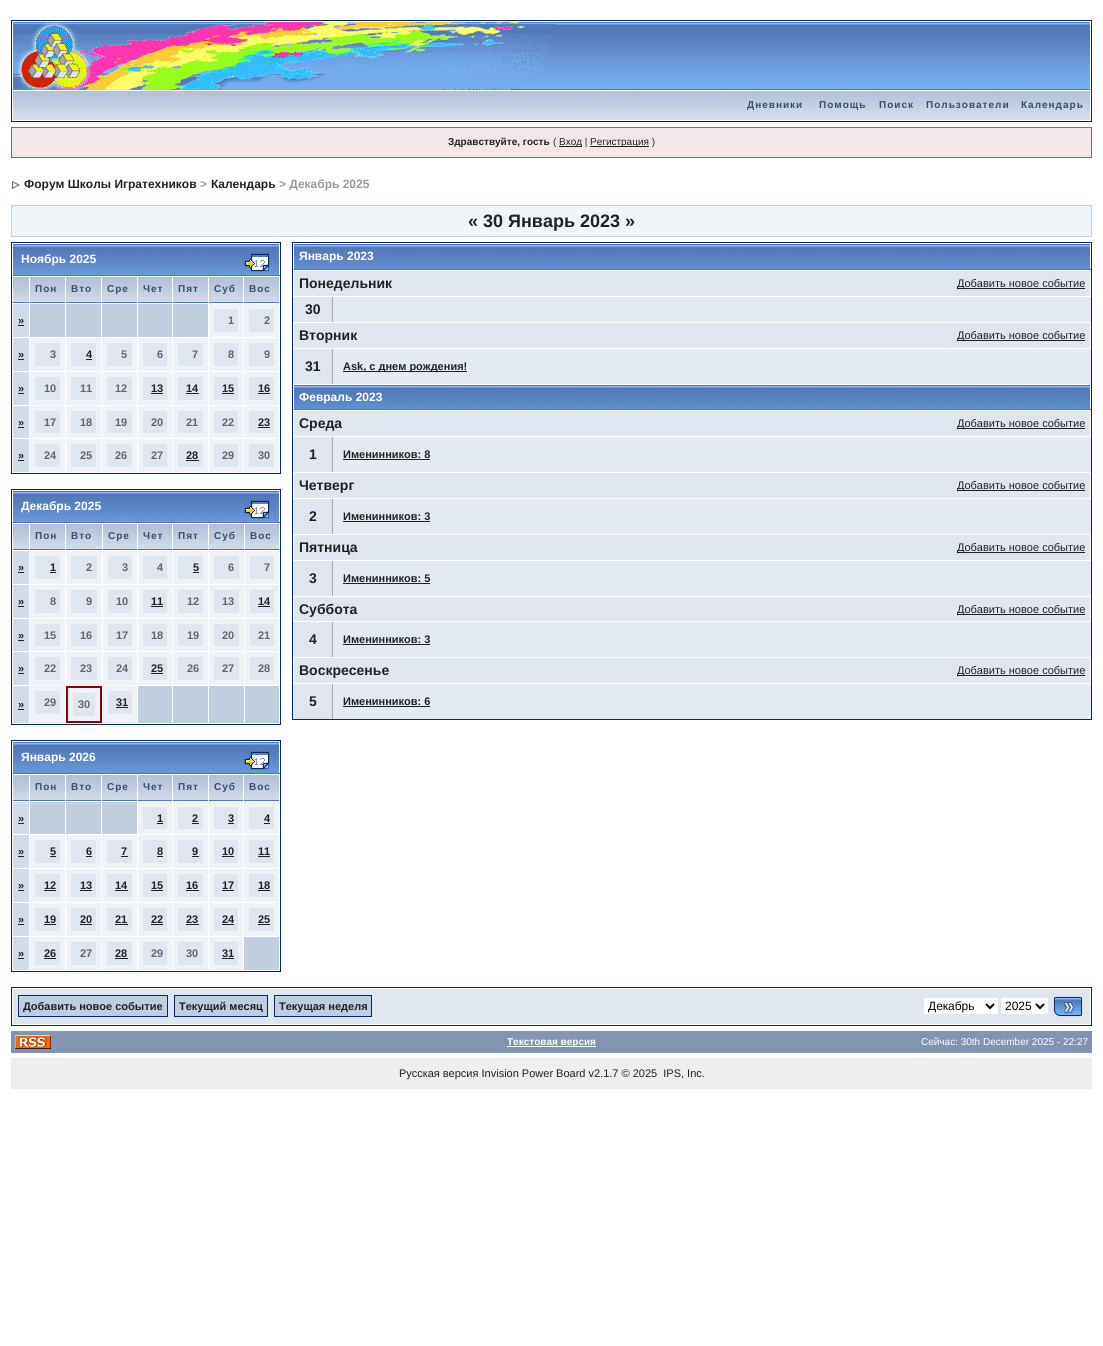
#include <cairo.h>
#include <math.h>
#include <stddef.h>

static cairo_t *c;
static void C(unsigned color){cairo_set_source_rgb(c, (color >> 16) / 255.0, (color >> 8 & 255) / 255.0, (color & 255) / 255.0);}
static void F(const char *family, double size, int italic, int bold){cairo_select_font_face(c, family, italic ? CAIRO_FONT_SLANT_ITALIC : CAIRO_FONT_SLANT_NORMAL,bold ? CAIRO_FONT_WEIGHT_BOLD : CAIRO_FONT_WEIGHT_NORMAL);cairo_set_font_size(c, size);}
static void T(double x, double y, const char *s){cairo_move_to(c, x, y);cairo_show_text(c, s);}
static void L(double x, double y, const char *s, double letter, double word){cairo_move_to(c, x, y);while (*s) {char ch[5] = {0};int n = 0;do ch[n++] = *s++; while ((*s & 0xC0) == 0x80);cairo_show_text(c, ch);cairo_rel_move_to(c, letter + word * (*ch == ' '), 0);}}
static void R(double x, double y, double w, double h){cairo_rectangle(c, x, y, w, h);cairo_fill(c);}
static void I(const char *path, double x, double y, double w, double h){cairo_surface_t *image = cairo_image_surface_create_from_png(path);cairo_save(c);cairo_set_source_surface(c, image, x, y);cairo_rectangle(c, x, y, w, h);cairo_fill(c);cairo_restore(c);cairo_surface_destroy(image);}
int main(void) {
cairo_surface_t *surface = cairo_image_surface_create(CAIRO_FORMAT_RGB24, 1103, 1346);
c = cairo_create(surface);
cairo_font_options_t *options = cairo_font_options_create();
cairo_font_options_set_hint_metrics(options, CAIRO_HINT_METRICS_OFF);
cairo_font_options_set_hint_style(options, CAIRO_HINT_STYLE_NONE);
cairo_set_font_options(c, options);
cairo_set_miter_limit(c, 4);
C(0xffffff);
cairo_paint(c);
cairo_rectangle(c,11.5,20.5,1080,101);
C(0x072a66);
cairo_set_line_width(c,1);
cairo_stroke(c);
I("1.png",440,22,650,68);
I("2.png",13,22,542,68);
I("3.png",13,91,1077,29);
F("Liberation Sans",10,0,1);
C(0x3a4f6c);
L(747,108,"Дневники",1,0);
L(819,108,"Помощь",1,0);
L(879,108,"Поиск",1,0);
L(926,108,"Пользователи",1,0);
L(1021,108,"Календарь",1,0);
C(0xf4e7ea);
cairo_rectangle(c,11.5,127.5,1080,30);
cairo_fill_preserve(c);
C(0x986265);
cairo_stroke(c);
C(0x222222);
T(448,145,"Здравствуйте, гость");
F("Liberation Sans",10,0,0);
T(553,145,"(");
R(559,146,23,1);
T(559,145,"Вход |");
R(590,146,59,1);
T(590,145,"Регистрация )");
I("4.png",12,181,8,8);
F("Liberation Sans",12,0,1);
T(24,188,"Форум Школы Игратехников");
C(0x999999);
T(200,188,">");
C(0x222222);
T(211,188,"Календарь");
C(0x999999);
T(279,188,"> Декабрь 2025");
C(0xf0f5fa);
cairo_rectangle(c,11.5,205.5,1080,31);
cairo_fill_preserve(c);
C(0xc2cfdf);
cairo_stroke(c);
F("Liberation Sans",18,0,1);
C(0x222222);
T(468,227,"« 30 Январь 2023 »");
cairo_rectangle(c,11.5,242.5,269,231);
C(0x072a66);
cairo_stroke(c);
I("5.png",13,244,266,31);
C(0x5176b5);
R(12,275,268,1);
C(0xffffff);
R(12,275,1,1);
F("Liberation Sans",12,0,1);
T(21,263,"Ноябрь 2025");
I("6.png",244,253,26,19);
I("7.png",13,277,16,25);
C(0x5176b5);
R(13,302,16,1);
I("8.png",30,277,35,25);
R(30,302,35,1);
F("Liberation Sans",10,0,1);
C(0x3a4f6c);
L(35,292,"Пон",1,0);
I("8.png",66,277,35,25);
C(0x5176b5);
R(66,302,35,1);
C(0x3a4f6c);
L(71,292,"Вто",1,0);
I("8.png",102,277,35,25);
C(0x5176b5);
R(102,302,35,1);
C(0x3a4f6c);
L(107,292,"Сре",1,0);
I("9.png",138,277,34,25);
C(0x5176b5);
R(138,302,34,1);
C(0x3a4f6c);
L(143,292,"Чет",1,0);
I("8.png",173,277,35,25);
C(0x5176b5);
R(173,302,35,1);
C(0x3a4f6c);
L(178,292,"Пят",1,0);
I("9.png",209,277,34,25);
C(0x5176b5);
R(209,302,34,1);
C(0x3a4f6c);
L(214,292,"Суб",1,0);
I("8.png",244,277,35,25);
C(0x5176b5);
R(244,302,35,1);
C(0x3a4f6c);
L(249,292,"Вос",1,0);
C(0xd1dceb);
R(13,304,16,33);
F("Liberation Sans",11,0,1);
C(0x222222);
T(18,324,"»");
R(18,325,6,1);
C(0xc2cfdf);
R(30,304,35,33);
R(66,304,35,33);
R(102,304,35,33);
R(138,304,34,33);
R(173,304,35,33);
C(0xeef2f7);
R(209,304,34,33);
C(0xdfe6ef);
R(214,309,24,23);
C(0x666666);
T(228,324,"1");
C(0xeef2f7);
R(244,304,35,33);
C(0xdfe6ef);
R(249,309,25,23);
C(0x666666);
T(264,324,"2");
C(0xd1dceb);
R(13,338,16,33);
C(0x222222);
T(18,358,"»");
R(18,359,6,1);
C(0xeef2f7);
R(30,338,35,33);
C(0xdfe6ef);
R(35,343,25,23);
C(0x666666);
T(50,358,"3");
C(0xeef2f7);
R(66,338,35,33);
C(0xdfe6ef);
R(71,343,25,23);
C(0x222222);
T(86,358,"4");
R(86,359,6,1);
C(0xeef2f7);
R(102,338,35,33);
C(0xdfe6ef);
R(107,343,25,23);
C(0x666666);
T(121,358,"5");
C(0xeef2f7);
R(138,338,34,33);
C(0xdfe6ef);
R(143,343,24,23);
C(0x666666);
T(157,358,"6");
C(0xeef2f7);
R(173,338,35,33);
C(0xdfe6ef);
R(178,343,25,23);
C(0x666666);
T(192,358,"7");
C(0xeef2f7);
R(209,338,34,33);
C(0xdfe6ef);
R(214,343,24,23);
C(0x666666);
T(228,358,"8");
C(0xeef2f7);
R(244,338,35,33);
C(0xdfe6ef);
R(249,343,25,23);
C(0x666666);
T(264,358,"9");
C(0xd1dceb);
R(13,372,16,33);
C(0x222222);
T(18,392,"»");
R(18,393,6,1);
C(0xeef2f7);
R(30,372,35,33);
C(0xdfe6ef);
R(35,377,25,23);
C(0x666666);
T(44,392,"10");
C(0xeef2f7);
R(66,372,35,33);
C(0xdfe6ef);
R(71,377,25,23);
C(0x666666);
T(80,392,"11");
C(0xeef2f7);
R(102,372,35,33);
C(0xdfe6ef);
R(107,377,25,23);
C(0x666666);
T(115,392,"12");
C(0xeef2f7);
R(138,372,34,33);
C(0xdfe6ef);
R(143,377,24,23);
C(0x222222);
T(151,392,"13");
R(151,393,12,1);
C(0xeef2f7);
R(173,372,35,33);
C(0xdfe6ef);
R(178,377,25,23);
C(0x222222);
T(186,392,"14");
R(186,393,13,1);
C(0xeef2f7);
R(209,372,34,33);
C(0xdfe6ef);
R(214,377,24,23);
C(0x222222);
T(222,392,"15");
R(222,393,12,1);
C(0xeef2f7);
R(244,372,35,33);
C(0xdfe6ef);
R(249,377,25,23);
C(0x222222);
T(258,392,"16");
R(258,393,12,1);
C(0xd1dceb);
R(13,406,16,32);
C(0x222222);
T(18,426,"»");
R(18,427,6,1);
C(0xeef2f7);
R(30,406,35,32);
C(0xdfe6ef);
R(35,411,25,22);
C(0x666666);
T(44,426,"17");
C(0xeef2f7);
R(66,406,35,32);
C(0xdfe6ef);
R(71,411,25,22);
C(0x666666);
T(80,426,"18");
C(0xeef2f7);
R(102,406,35,32);
C(0xdfe6ef);
R(107,411,25,22);
C(0x666666);
T(115,426,"19");
C(0xeef2f7);
R(138,406,34,32);
C(0xdfe6ef);
R(143,411,24,22);
C(0x666666);
T(151,426,"20");
C(0xeef2f7);
R(173,406,35,32);
C(0xdfe6ef);
R(178,411,25,22);
C(0x666666);
T(186,426,"21");
C(0xeef2f7);
R(209,406,34,32);
C(0xdfe6ef);
R(214,411,24,22);
C(0x666666);
T(222,426,"22");
C(0xeef2f7);
R(244,406,35,32);
C(0xdfe6ef);
R(249,411,25,22);
C(0x222222);
T(258,426,"23");
R(258,427,12,1);
C(0xd1dceb);
R(13,439,16,33);
C(0x222222);
T(18,459,"»");
R(18,460,6,1);
C(0xeef2f7);
R(30,439,35,33);
C(0xdfe6ef);
R(35,444,25,23);
C(0x666666);
T(44,459,"24");
C(0xeef2f7);
R(66,439,35,33);
C(0xdfe6ef);
R(71,444,25,23);
C(0x666666);
T(80,459,"25");
C(0xeef2f7);
R(102,439,35,33);
C(0xdfe6ef);
R(107,444,25,23);
C(0x666666);
T(115,459,"26");
C(0xeef2f7);
R(138,439,34,33);
C(0xdfe6ef);
R(143,444,24,23);
C(0x666666);
T(151,459,"27");
C(0xeef2f7);
R(173,439,35,33);
C(0xdfe6ef);
R(178,444,25,23);
C(0x222222);
T(186,459,"28");
R(186,460,13,1);
C(0xeef2f7);
R(209,439,34,33);
C(0xdfe6ef);
R(214,444,24,23);
C(0x666666);
T(222,459,"29");
C(0xeef2f7);
R(244,439,35,33);
C(0xdfe6ef);
R(249,444,25,23);
C(0x666666);
T(258,459,"30");
cairo_rectangle(c,11.5,489.5,269,235);
C(0x072a66);
cairo_stroke(c);
I("5.png",13,491,266,31);
C(0x5176b5);
R(12,522,268,1);
C(0xffffff);
R(12,522,1,1);
F("Liberation Sans",12,0,1);
T(21,510,"Декабрь 2025");
I("6.png",244,500,26,19);
I("7.png",13,524,16,25);
C(0x5176b5);
R(13,549,16,1);
I("8.png",30,524,35,25);
R(30,549,35,1);
F("Liberation Sans",10,0,1);
C(0x3a4f6c);
L(35,539,"Пон",1,0);
I("10.png",66,524,36,25);
C(0x5176b5);
R(66,549,36,1);
C(0x3a4f6c);
L(71,539,"Вто",1,0);
I("9.png",103,524,34,25);
C(0x5176b5);
R(103,549,34,1);
C(0x3a4f6c);
L(108,539,"Сре",1,0);
I("9.png",138,524,34,25);
C(0x5176b5);
R(138,549,34,1);
C(0x3a4f6c);
L(143,539,"Чет",1,0);
I("8.png",173,524,35,25);
C(0x5176b5);
R(173,549,35,1);
C(0x3a4f6c);
L(178,539,"Пят",1,0);
I("8.png",209,524,35,25);
C(0x5176b5);
R(209,549,35,1);
C(0x3a4f6c);
L(214,539,"Суб",1,0);
I("9.png",245,524,34,25);
C(0x5176b5);
R(245,549,34,1);
C(0x3a4f6c);
L(250,539,"Вос",1,0);
C(0xd1dceb);
R(13,551,16,33);
F("Liberation Sans",11,0,1);
C(0x222222);
T(18,571,"»");
R(18,572,6,1);
C(0xeef2f7);
R(30,551,35,33);
C(0xdfe6ef);
R(35,556,25,23);
C(0x222222);
T(50,571,"1");
R(50,572,6,1);
C(0xeef2f7);
R(66,551,36,33);
C(0xdfe6ef);
R(71,556,26,23);
C(0x666666);
T(86,571,"2");
C(0xeef2f7);
R(103,551,34,33);
C(0xdfe6ef);
R(108,556,24,23);
C(0x666666);
T(122,571,"3");
C(0xeef2f7);
R(138,551,34,33);
C(0xdfe6ef);
R(143,556,24,23);
C(0x666666);
T(157,571,"4");
C(0xeef2f7);
R(173,551,35,33);
C(0xdfe6ef);
R(178,556,25,23);
C(0x222222);
T(193,571,"5");
R(193,572,6,1);
C(0xeef2f7);
R(209,551,35,33);
C(0xdfe6ef);
R(214,556,25,23);
C(0x666666);
T(228,571,"6");
C(0xeef2f7);
R(245,551,34,33);
C(0xdfe6ef);
R(250,556,24,23);
C(0x666666);
T(264,571,"7");
C(0xd1dceb);
R(13,585,16,33);
C(0x222222);
T(18,605,"»");
R(18,606,6,1);
C(0xeef2f7);
R(30,585,35,33);
C(0xdfe6ef);
R(35,590,25,23);
C(0x666666);
T(50,605,"8");
C(0xeef2f7);
R(66,585,36,33);
C(0xdfe6ef);
R(71,590,26,23);
C(0x666666);
T(86,605,"9");
C(0xeef2f7);
R(103,585,34,33);
C(0xdfe6ef);
R(108,590,24,23);
C(0x666666);
T(116,605,"10");
C(0xeef2f7);
R(138,585,34,33);
C(0xdfe6ef);
R(143,590,24,23);
C(0x222222);
T(151,605,"11");
R(151,606,12,1);
C(0xeef2f7);
R(173,585,35,33);
C(0xdfe6ef);
R(178,590,25,23);
C(0x666666);
T(187,605,"12");
C(0xeef2f7);
R(209,585,35,33);
C(0xdfe6ef);
R(214,590,25,23);
C(0x666666);
T(222,605,"13");
C(0xeef2f7);
R(245,585,34,33);
C(0xdfe6ef);
R(250,590,24,23);
C(0x222222);
T(258,605,"14");
R(258,606,12,1);
C(0xd1dceb);
R(13,619,16,32);
C(0x222222);
T(18,639,"»");
R(18,640,6,1);
C(0xeef2f7);
R(30,619,35,32);
C(0xdfe6ef);
R(35,624,25,22);
C(0x666666);
T(44,639,"15");
C(0xeef2f7);
R(66,619,36,32);
C(0xdfe6ef);
R(71,624,26,22);
C(0x666666);
T(80,639,"16");
C(0xeef2f7);
R(103,619,34,32);
C(0xdfe6ef);
R(108,624,24,22);
C(0x666666);
T(116,639,"17");
C(0xeef2f7);
R(138,619,34,32);
C(0xdfe6ef);
R(143,624,24,22);
C(0x666666);
T(151,639,"18");
C(0xeef2f7);
R(173,619,35,32);
C(0xdfe6ef);
R(178,624,25,22);
C(0x666666);
T(187,639,"19");
C(0xeef2f7);
R(209,619,35,32);
C(0xdfe6ef);
R(214,624,25,22);
C(0x666666);
T(222,639,"20");
C(0xeef2f7);
R(245,619,34,32);
C(0xdfe6ef);
R(250,624,24,22);
C(0x666666);
T(258,639,"21");
C(0xd1dceb);
R(13,652,16,33);
C(0x222222);
T(18,672,"»");
R(18,673,6,1);
C(0xeef2f7);
R(30,652,35,33);
C(0xdfe6ef);
R(35,657,25,23);
C(0x666666);
T(44,672,"22");
C(0xeef2f7);
R(66,652,36,33);
C(0xdfe6ef);
R(71,657,26,23);
C(0x666666);
T(80,672,"23");
C(0xeef2f7);
R(103,652,34,33);
C(0xdfe6ef);
R(108,657,24,23);
C(0x666666);
T(116,672,"24");
C(0xeef2f7);
R(138,652,34,33);
C(0xdfe6ef);
R(143,657,24,23);
C(0x222222);
T(151,672,"25");
R(151,673,12,1);
C(0xeef2f7);
R(173,652,35,33);
C(0xdfe6ef);
R(178,657,25,23);
C(0x666666);
T(187,672,"26");
C(0xeef2f7);
R(209,652,35,33);
C(0xdfe6ef);
R(214,657,25,23);
C(0x666666);
T(222,672,"27");
C(0xeef2f7);
R(245,652,34,33);
C(0xdfe6ef);
R(250,657,24,23);
C(0x666666);
T(258,672,"28");
C(0xd1dceb);
R(13,686,16,37);
C(0x222222);
T(18,708,"»");
R(18,709,6,1);
C(0xeef2f7);
R(30,686,35,37);
C(0xdfe6ef);
R(35,691,25,23);
C(0x666666);
T(44,706,"29");
C(0xeef2f7);
cairo_rectangle(c,67,687,34,35);
cairo_fill_preserve(c);
C(0x8b0000);
cairo_set_line_width(c,2);
cairo_stroke(c);
C(0xdfe6ef);
R(73,693,22,23);
C(0x666666);
T(78,708,"30");
C(0xeef2f7);
R(103,686,34,37);
C(0xdfe6ef);
R(108,691,24,23);
C(0x222222);
T(116,706,"31");
R(116,707,12,1);
C(0xc2cfdf);
R(138,686,34,37);
R(173,686,35,37);
R(209,686,35,37);
R(245,686,34,37);
cairo_rectangle(c,11.5,740.5,269,231);
C(0x072a66);
cairo_set_line_width(c,1);
cairo_stroke(c);
I("5.png",13,742,266,31);
C(0x5176b5);
R(12,773,268,1);
C(0xffffff);
R(12,773,1,1);
F("Liberation Sans",12,0,1);
T(21,761,"Январь 2026");
I("6.png",244,751,26,19);
I("7.png",13,775,16,25);
C(0x5176b5);
R(13,800,16,1);
I("8.png",30,775,35,25);
R(30,800,35,1);
F("Liberation Sans",10,0,1);
C(0x3a4f6c);
L(35,790,"Пон",1,0);
I("8.png",66,775,35,25);
C(0x5176b5);
R(66,800,35,1);
C(0x3a4f6c);
L(71,790,"Вто",1,0);
I("8.png",102,775,35,25);
C(0x5176b5);
R(102,800,35,1);
C(0x3a4f6c);
L(107,790,"Сре",1,0);
I("9.png",138,775,34,25);
C(0x5176b5);
R(138,800,34,1);
C(0x3a4f6c);
L(143,790,"Чет",1,0);
I("8.png",173,775,35,25);
C(0x5176b5);
R(173,800,35,1);
C(0x3a4f6c);
L(178,790,"Пят",1,0);
I("9.png",209,775,34,25);
C(0x5176b5);
R(209,800,34,1);
C(0x3a4f6c);
L(214,790,"Суб",1,0);
I("8.png",244,775,35,25);
C(0x5176b5);
R(244,800,35,1);
C(0x3a4f6c);
L(249,790,"Вос",1,0);
C(0xd1dceb);
R(13,802,16,32);
F("Liberation Sans",11,0,1);
C(0x222222);
T(18,822,"»");
R(18,823,6,1);
C(0xc2cfdf);
R(30,802,35,32);
R(66,802,35,32);
R(102,802,35,32);
C(0xeef2f7);
R(138,802,34,32);
C(0xdfe6ef);
R(143,807,24,22);
C(0x222222);
T(157,822,"1");
R(157,823,6,1);
C(0xeef2f7);
R(173,802,35,32);
C(0xdfe6ef);
R(178,807,25,22);
C(0x222222);
T(192,822,"2");
R(192,823,7,1);
C(0xeef2f7);
R(209,802,34,32);
C(0xdfe6ef);
R(214,807,24,22);
C(0x222222);
T(228,822,"3");
R(228,823,6,1);
C(0xeef2f7);
R(244,802,35,32);
C(0xdfe6ef);
R(249,807,25,22);
C(0x222222);
T(264,822,"4");
R(264,823,6,1);
C(0xd1dceb);
R(13,835,16,33);
C(0x222222);
T(18,855,"»");
R(18,856,6,1);
C(0xeef2f7);
R(30,835,35,33);
C(0xdfe6ef);
R(35,840,25,23);
C(0x222222);
T(50,855,"5");
R(50,856,6,1);
C(0xeef2f7);
R(66,835,35,33);
C(0xdfe6ef);
R(71,840,25,23);
C(0x222222);
T(86,855,"6");
R(86,856,6,1);
C(0xeef2f7);
R(102,835,35,33);
C(0xdfe6ef);
R(107,840,25,23);
C(0x222222);
T(121,855,"7");
R(121,856,7,1);
C(0xeef2f7);
R(138,835,34,33);
C(0xdfe6ef);
R(143,840,24,23);
C(0x222222);
T(157,855,"8");
R(157,856,6,1);
C(0xeef2f7);
R(173,835,35,33);
C(0xdfe6ef);
R(178,840,25,23);
C(0x222222);
T(192,855,"9");
R(192,856,7,1);
C(0xeef2f7);
R(209,835,34,33);
C(0xdfe6ef);
R(214,840,24,23);
C(0x222222);
T(222,855,"10");
R(222,856,12,1);
C(0xeef2f7);
R(244,835,35,33);
C(0xdfe6ef);
R(249,840,25,23);
C(0x222222);
T(258,855,"11");
R(258,856,12,1);
C(0xd1dceb);
R(13,869,16,33);
C(0x222222);
T(18,889,"»");
R(18,890,6,1);
C(0xeef2f7);
R(30,869,35,33);
C(0xdfe6ef);
R(35,874,25,23);
C(0x222222);
T(44,889,"12");
R(44,890,12,1);
C(0xeef2f7);
R(66,869,35,33);
C(0xdfe6ef);
R(71,874,25,23);
C(0x222222);
T(80,889,"13");
R(80,890,12,1);
C(0xeef2f7);
R(102,869,35,33);
C(0xdfe6ef);
R(107,874,25,23);
C(0x222222);
T(115,889,"14");
R(115,890,13,1);
C(0xeef2f7);
R(138,869,34,33);
C(0xdfe6ef);
R(143,874,24,23);
C(0x222222);
T(151,889,"15");
R(151,890,12,1);
C(0xeef2f7);
R(173,869,35,33);
C(0xdfe6ef);
R(178,874,25,23);
C(0x222222);
T(186,889,"16");
R(186,890,13,1);
C(0xeef2f7);
R(209,869,34,33);
C(0xdfe6ef);
R(214,874,24,23);
C(0x222222);
T(222,889,"17");
R(222,890,12,1);
C(0xeef2f7);
R(244,869,35,33);
C(0xdfe6ef);
R(249,874,25,23);
C(0x222222);
T(258,889,"18");
R(258,890,12,1);
C(0xd1dceb);
R(13,903,16,33);
C(0x222222);
T(18,923,"»");
R(18,924,6,1);
C(0xeef2f7);
R(30,903,35,33);
C(0xdfe6ef);
R(35,908,25,23);
C(0x222222);
T(44,923,"19");
R(44,924,12,1);
C(0xeef2f7);
R(66,903,35,33);
C(0xdfe6ef);
R(71,908,25,23);
C(0x222222);
T(80,923,"20");
R(80,924,12,1);
C(0xeef2f7);
R(102,903,35,33);
C(0xdfe6ef);
R(107,908,25,23);
C(0x222222);
T(115,923,"21");
R(115,924,13,1);
C(0xeef2f7);
R(138,903,34,33);
C(0xdfe6ef);
R(143,908,24,23);
C(0x222222);
T(151,923,"22");
R(151,924,12,1);
C(0xeef2f7);
R(173,903,35,33);
C(0xdfe6ef);
R(178,908,25,23);
C(0x222222);
T(186,923,"23");
R(186,924,13,1);
C(0xeef2f7);
R(209,903,34,33);
C(0xdfe6ef);
R(214,908,24,23);
C(0x222222);
T(222,923,"24");
R(222,924,12,1);
C(0xeef2f7);
R(244,903,35,33);
C(0xdfe6ef);
R(249,908,25,23);
C(0x222222);
T(258,923,"25");
R(258,924,12,1);
C(0xd1dceb);
R(13,937,16,33);
C(0x222222);
T(18,957,"»");
R(18,958,6,1);
C(0xeef2f7);
R(30,937,35,33);
C(0xdfe6ef);
R(35,942,25,23);
C(0x222222);
T(44,957,"26");
R(44,958,12,1);
C(0xeef2f7);
R(66,937,35,33);
C(0xdfe6ef);
R(71,942,25,23);
C(0x666666);
T(80,957,"27");
C(0xeef2f7);
R(102,937,35,33);
C(0xdfe6ef);
R(107,942,25,23);
C(0x222222);
T(115,957,"28");
R(115,958,13,1);
C(0xeef2f7);
R(138,937,34,33);
C(0xdfe6ef);
R(143,942,24,23);
C(0x666666);
T(151,957,"29");
C(0xeef2f7);
R(173,937,35,33);
C(0xdfe6ef);
R(178,942,25,23);
C(0x666666);
T(186,957,"30");
C(0xeef2f7);
R(209,937,34,33);
C(0xdfe6ef);
R(214,942,24,23);
C(0x222222);
T(222,957,"31");
R(222,958,12,1);
C(0xc2cfdf);
R(244,937,35,33);
cairo_rectangle(c,292.5,242.5,799,477);
C(0x072a66);
cairo_stroke(c);
I("11.png",294,244,796,25);
C(0x5176b5);
R(293,269,798,1);
C(0xffffff);
R(293,269,1,1);
F("Liberation Sans",12,0,1);
T(299,260,"Январь 2023");
C(0xdfe6ef);
R(294,271,796,25);
F("Liberation Sans",14,0,1);
C(0x222222);
T(299,288,"Понедельник");
R(957,288,128,1);
F("Liberation Sans",11,0,0);
T(957,287,"Добавить новое событие");
C(0xdfe6ef);
R(293,297,39,25);
C(0xaaaaaa);
R(332,297,1,25);
F("Liberation Sans",14,0,1);
C(0x222222);
T(305,314,"30");
C(0xe4eaf2);
R(333,297,758,25);
C(0xdfe6ef);
R(294,323,796,25);
C(0x222222);
T(299,340,"Вторник");
R(957,340,128,1);
F("Liberation Sans",11,0,0);
T(957,339,"Добавить новое событие");
C(0xdfe6ef);
R(293,349,39,35);
C(0xaaaaaa);
R(332,349,1,35);
F("Liberation Sans",14,0,1);
C(0x222222);
T(305,371,"31");
C(0xe4eaf2);
R(333,349,758,35);
C(0x222222);
R(343,371,124,1);
F("Liberation Sans",11,0,1);
T(343,370,"Ask, с днем рождения!");
I("12.png",294,385,796,24);
C(0x5176b5);
R(293,409,798,1);
C(0xffffff);
R(293,409,1,1);
F("Liberation Sans",12,0,1);
T(299,401,"Февраль 2023");
C(0xdfe6ef);
R(294,411,796,25);
F("Liberation Sans",14,0,1);
C(0x222222);
T(299,428,"Среда");
R(957,428,128,1);
F("Liberation Sans",11,0,0);
T(957,427,"Добавить новое событие");
C(0xdfe6ef);
R(293,437,39,35);
C(0xaaaaaa);
R(332,437,1,35);
F("Liberation Sans",14,0,1);
C(0x222222);
T(309,459,"1");
C(0xe4eaf2);
R(333,437,758,35);
F("Liberation Sans",11,0,1);
C(0x222222);
T(343,458,"Именинников: 8");
R(343,459,87,1);
C(0xdfe6ef);
R(294,473,796,25);
F("Liberation Sans",14,0,1);
C(0x222222);
T(299,490,"Четверг");
R(957,490,128,1);
F("Liberation Sans",11,0,0);
T(957,489,"Добавить новое событие");
C(0xdfe6ef);
R(293,499,39,35);
C(0xaaaaaa);
R(332,499,1,35);
F("Liberation Sans",14,0,1);
C(0x222222);
T(309,521,"2");
C(0xe4eaf2);
R(333,499,758,35);
F("Liberation Sans",11,0,1);
C(0x222222);
T(343,520,"Именинников: 3");
R(343,521,87,1);
C(0xdfe6ef);
R(294,535,796,25);
F("Liberation Sans",14,0,1);
C(0x222222);
T(299,552,"Пятница");
R(957,552,128,1);
F("Liberation Sans",11,0,0);
T(957,551,"Добавить новое событие");
C(0xdfe6ef);
R(293,561,39,35);
C(0xaaaaaa);
R(332,561,1,35);
F("Liberation Sans",14,0,1);
C(0x222222);
T(309,583,"3");
C(0xe4eaf2);
R(333,561,758,35);
F("Liberation Sans",11,0,1);
C(0x222222);
T(343,582,"Именинников: 5");
R(343,583,87,1);
C(0xdfe6ef);
R(294,597,796,24);
F("Liberation Sans",14,0,1);
C(0x222222);
T(299,614,"Суббота");
R(957,614,128,1);
F("Liberation Sans",11,0,0);
T(957,613,"Добавить новое событие");
C(0xdfe6ef);
R(293,622,39,35);
C(0xaaaaaa);
R(332,622,1,35);
F("Liberation Sans",14,0,1);
C(0x222222);
T(309,644,"4");
C(0xe4eaf2);
R(333,622,758,35);
F("Liberation Sans",11,0,1);
C(0x222222);
T(343,643,"Именинников: 3");
R(343,644,87,1);
C(0xdfe6ef);
R(294,658,796,25);
F("Liberation Sans",14,0,1);
C(0x222222);
T(299,675,"Воскресенье");
R(957,675,128,1);
F("Liberation Sans",11,0,0);
T(957,674,"Добавить новое событие");
C(0xdfe6ef);
R(293,684,39,35);
C(0xaaaaaa);
R(332,684,1,35);
F("Liberation Sans",14,0,1);
C(0x222222);
T(309,706,"5");
C(0xe4eaf2);
R(333,684,758,35);
F("Liberation Sans",11,0,1);
C(0x222222);
T(343,705,"Именинников: 6");
R(343,706,87,1);
cairo_rectangle(c,11.5,987.5,1080,38);
C(0x072a66);
cairo_stroke(c);
C(0xdfe6ef);
R(13,989,1077,35);
C(0xbfcde0);
cairo_rectangle(c,18.5,995.5,149,21);
cairo_fill_preserve(c);
C(0x072a66);
cairo_stroke(c);
C(0x222222);
T(23,1010,"Добавить новое событие");
C(0xbfcde0);
cairo_rectangle(c,174.5,995.5,93,21);
cairo_fill_preserve(c);
C(0x072a66);
cairo_stroke(c);
C(0x222222);
T(179,1010,"Текущий месяц");
C(0xbfcde0);
cairo_rectangle(c,274.5,995.5,97,21);
cairo_fill_preserve(c);
C(0x072a66);
cairo_stroke(c);
C(0x222222);
T(279,1010,"Текущая неделя");
C(0xffffff);
R(924,998,74,16);
cairo_new_path(c);
cairo_move_to(c,986,1004);
cairo_line_to(c,990,1008);
cairo_line_to(c,994,1004);
C(0x000000);
cairo_set_line_width(c,2);
cairo_stroke(c);
cairo_save(c);
cairo_rectangle(c,928,998,54,16);
cairo_clip(c);
F("Liberation Sans",12,0,0);
T(928,1010,"Декабрь");
cairo_restore(c);
C(0xffffff);
R(1001,998,47,16);
cairo_new_path(c);
cairo_move_to(c,1036,1004);
cairo_line_to(c,1040,1008);
cairo_line_to(c,1044,1004);
C(0x000000);
cairo_stroke(c);
F("Liberation Sans",12,0,0);
T(1005,1010,"2025");
I("13.png",1053,996,30,21);
C(0x8394b2);
R(11,1031,1081,22);
I("14.png",15,1035,36,14);
C(0xffffff);
R(507,1046,89,1);
F("Liberation Sans",10,0,1);
T(507,1045,"Текстовая версия");
F("Liberation Sans",10,0,0);
T(921,1045,"Сейчас: 30th December 2025 - 22:27");
C(0xeeeeee);
R(11,1058,1081,31);
F("Liberation Sans",11,0,0);
C(0x222222);
T(399,1077,"Русская версия Invision Power Board v2.1.7 © 2025  IPS, Inc.");
cairo_surface_write_to_png(surface, "o.png");
cairo_font_options_destroy(options);
cairo_destroy(c);
cairo_surface_destroy(surface);
return 0;
}
